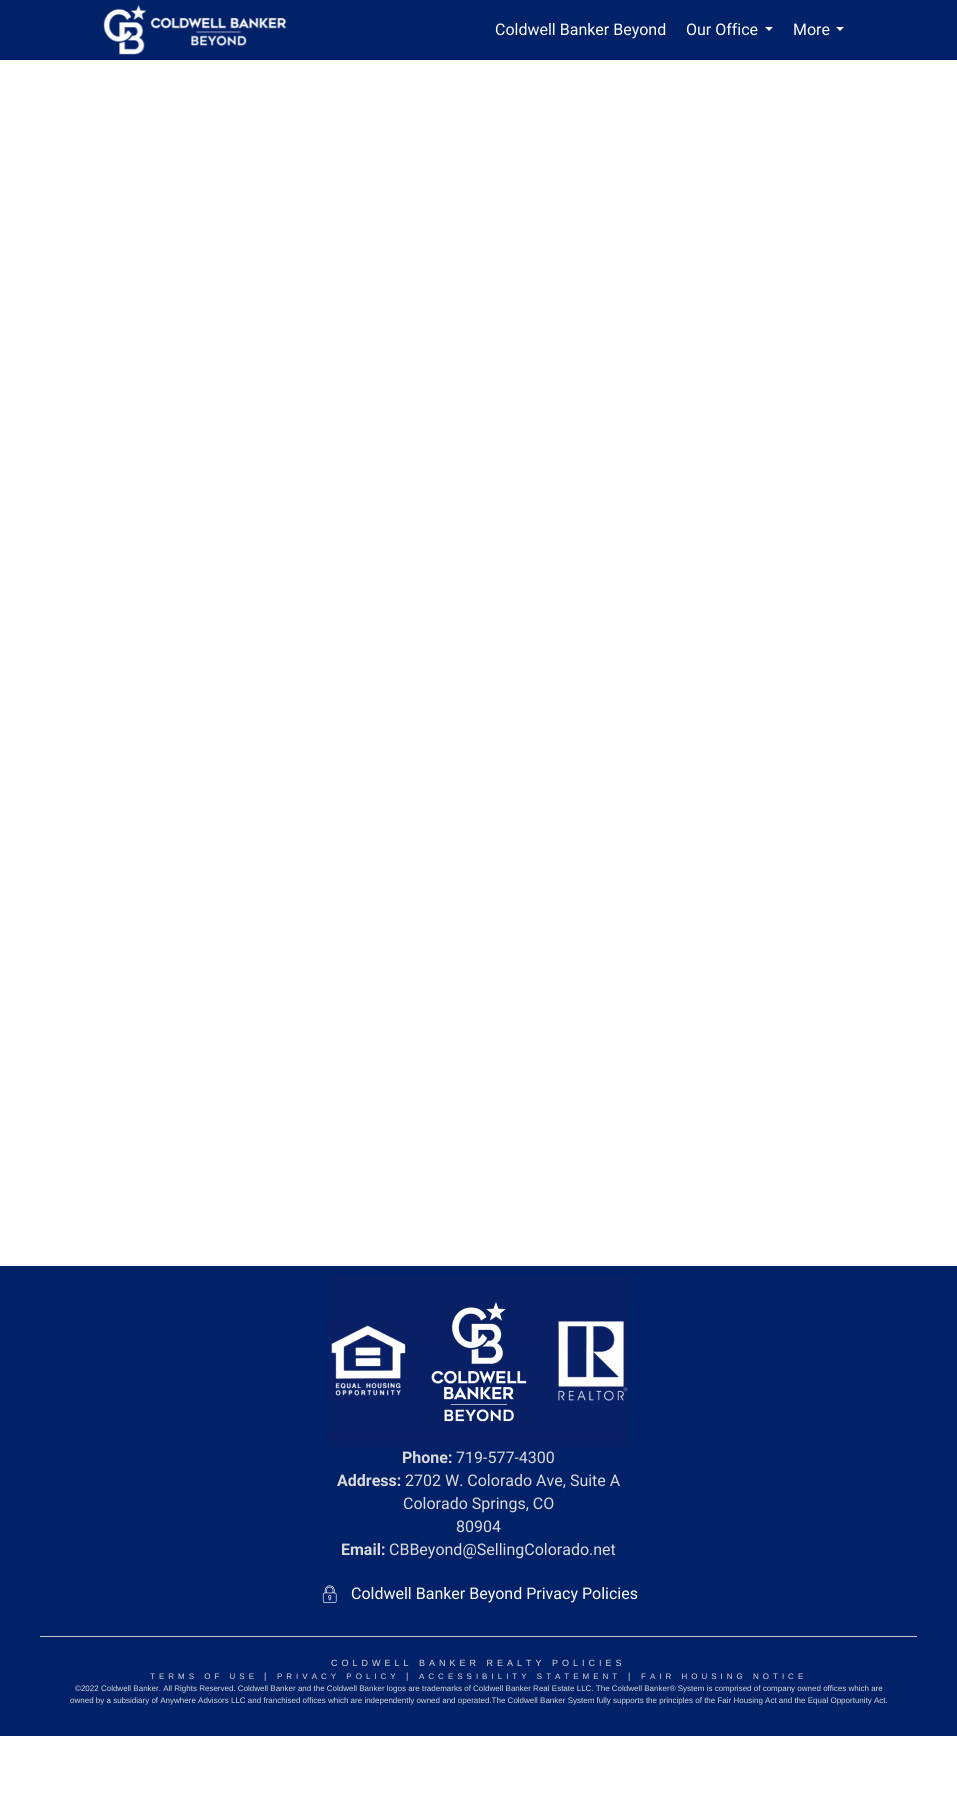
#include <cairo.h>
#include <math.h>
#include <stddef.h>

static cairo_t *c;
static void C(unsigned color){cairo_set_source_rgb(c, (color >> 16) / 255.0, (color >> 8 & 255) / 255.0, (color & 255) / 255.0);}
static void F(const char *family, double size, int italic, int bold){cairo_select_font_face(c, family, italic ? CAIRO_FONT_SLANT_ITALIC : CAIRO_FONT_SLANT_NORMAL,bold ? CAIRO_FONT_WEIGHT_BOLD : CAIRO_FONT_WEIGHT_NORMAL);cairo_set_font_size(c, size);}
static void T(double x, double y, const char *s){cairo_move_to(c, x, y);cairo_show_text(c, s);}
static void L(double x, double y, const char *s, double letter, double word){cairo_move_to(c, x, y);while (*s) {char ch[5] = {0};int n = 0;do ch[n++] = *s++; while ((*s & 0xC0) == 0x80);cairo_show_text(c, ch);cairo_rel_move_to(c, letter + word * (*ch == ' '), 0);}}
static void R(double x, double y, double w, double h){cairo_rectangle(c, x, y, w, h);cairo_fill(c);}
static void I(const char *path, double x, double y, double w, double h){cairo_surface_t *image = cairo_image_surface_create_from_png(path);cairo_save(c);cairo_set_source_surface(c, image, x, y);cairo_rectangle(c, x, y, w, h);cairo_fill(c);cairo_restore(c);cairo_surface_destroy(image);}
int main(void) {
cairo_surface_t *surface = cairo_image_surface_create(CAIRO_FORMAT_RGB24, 957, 1796);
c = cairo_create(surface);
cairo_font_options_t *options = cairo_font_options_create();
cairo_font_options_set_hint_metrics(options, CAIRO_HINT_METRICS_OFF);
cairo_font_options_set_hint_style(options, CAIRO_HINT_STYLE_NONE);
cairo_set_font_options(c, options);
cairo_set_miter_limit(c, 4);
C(0xffffff);
cairo_paint(c);
C(0x012169);
R(0,0,957,60);
I("1.png",103,5,184,50);
F("Roboto",16,0,0);
C(0xffffff);
T(495,35,"Coldwell Banker Beyond");
T(686,35,"Our Office");
cairo_new_path(c);
cairo_move_to(c,765,27);
cairo_line_to(c,773,27);
cairo_line_to(c,769,31);
cairo_close_path(c);
cairo_fill(c);
T(793,35,"More");
cairo_new_path(c);
cairo_move_to(c,836,27);
cairo_line_to(c,844,27);
cairo_line_to(c,840,31);
cairo_close_path(c);
cairo_fill(c);
C(0x012169);
R(0,1266,957,470);
I("2.png",329,1276,300,171);
F("Roboto",16,0,1);
C(0xdbdbdb);
T(402,1463,"Phone:");
F("Roboto",16,0,0);
T(456,1463,"719-577-4300");
F("Roboto",16,0,1);
T(337,1486,"Address:");
F("Roboto",16,0,0);
T(405,1486,"2702 W. Colorado Ave, Suite A");
T(403,1509,"Colorado Springs, CO");
T(456,1532,"80904");
F("Roboto",16,0,1);
T(341,1555,"Email:");
F("Roboto",16,0,0);
T(389,1555,"CBBeyond@SellingColorado.net");
I("3.png",322,1585,15,18);
C(0xffffff);
T(351,1599,"Coldwell Banker Beyond Privacy Policies");
C(0xcccccc);
R(40,1636,877,1);
F("Liberation Sans",9,0,0);
C(0xdbdbdb);
L(331,1666,"COLDWELL BANKER REALTY POLICIES",4,0);
F("Liberation Sans",8,0,0);
L(150,1679,"TERMS OF USE",4,0);
F("Liberation Sans",9,0,0);
L(264,1679,"|",4,0);
F("Liberation Sans",8,0,0);
L(277,1679,"PRIVACY POLICY",4,0);
F("Liberation Sans",9,0,0);
L(406,1679,"|",4,0);
F("Liberation Sans",8,0,0);
L(419,1679,"ACCESSIBILITY STATEMENT",4,0);
F("Liberation Sans",9,0,0);
L(628,1679,"|",4,0);
F("Liberation Sans",8,0,0);
L(641,1679,"FAIR HOUSING NOTICE",4,0);
T(75,1691,"©2022 Coldwell Banker. All Rights Reserved. Coldwell Banker and the Coldwell Banker logos are trademarks of Coldwell Banker Real Estate LLC. The Coldwell Banker® System is comprised of company owned offices which are");
T(70,1703,"owned by a subsidiary of Anywhere Advisors LLC and franchised offices which are independently owned and operated.The Coldwell Banker System fully supports the principles of the Fair Housing Act and the Equal Opportunity Act.");
cairo_surface_write_to_png(surface, "o.png");
cairo_font_options_destroy(options);
cairo_destroy(c);
cairo_surface_destroy(surface);
return 0;
}
